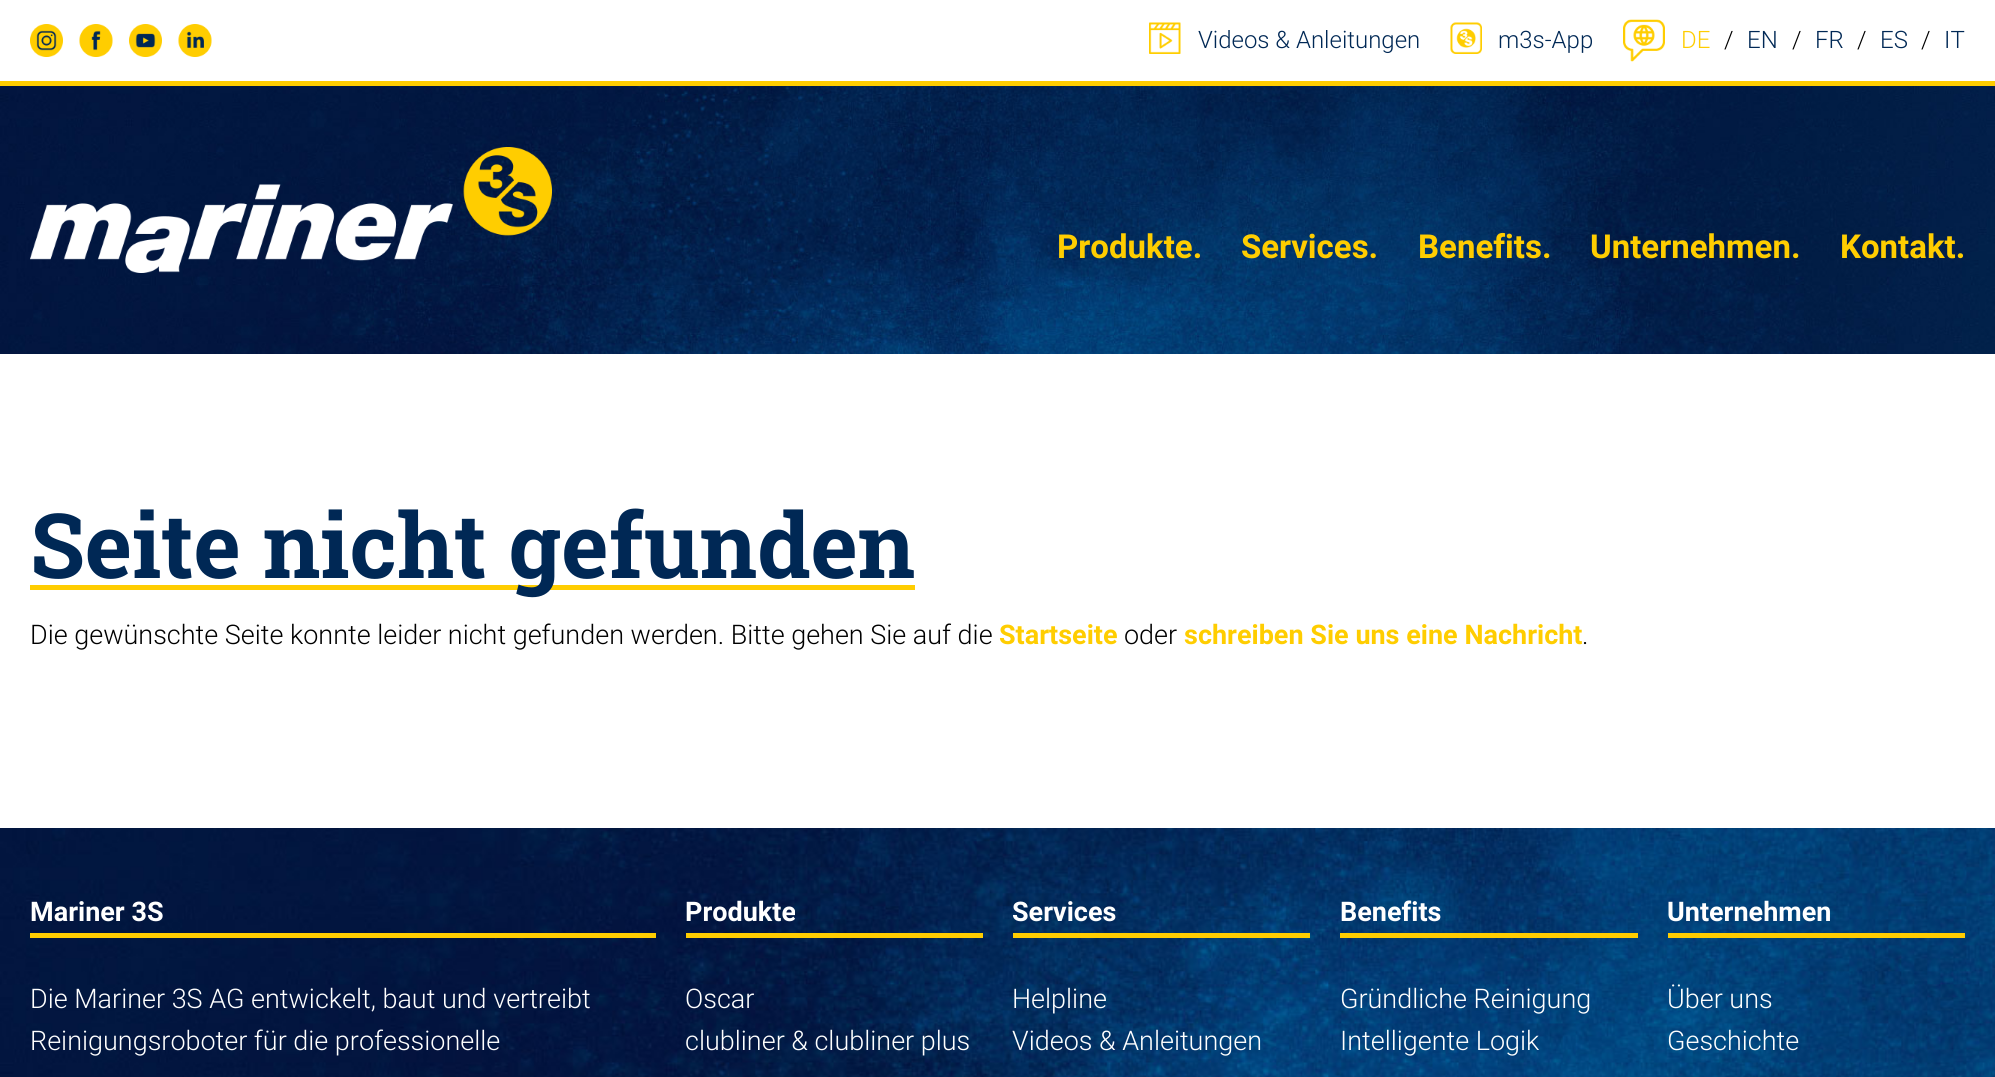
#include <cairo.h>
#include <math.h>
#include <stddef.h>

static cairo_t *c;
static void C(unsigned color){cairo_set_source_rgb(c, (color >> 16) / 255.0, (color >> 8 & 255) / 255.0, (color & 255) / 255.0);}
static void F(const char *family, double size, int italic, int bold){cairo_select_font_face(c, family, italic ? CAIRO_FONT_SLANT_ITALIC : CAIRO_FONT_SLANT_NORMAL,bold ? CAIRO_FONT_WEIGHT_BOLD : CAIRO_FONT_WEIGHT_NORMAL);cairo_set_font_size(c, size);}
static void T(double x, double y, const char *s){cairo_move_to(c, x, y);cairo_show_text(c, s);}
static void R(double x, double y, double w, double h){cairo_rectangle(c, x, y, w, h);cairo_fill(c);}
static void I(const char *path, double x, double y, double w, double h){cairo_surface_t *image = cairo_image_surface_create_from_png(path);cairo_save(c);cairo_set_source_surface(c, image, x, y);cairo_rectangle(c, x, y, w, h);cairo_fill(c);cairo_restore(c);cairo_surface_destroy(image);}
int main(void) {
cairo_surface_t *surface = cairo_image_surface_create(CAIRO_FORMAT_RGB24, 1995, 1077);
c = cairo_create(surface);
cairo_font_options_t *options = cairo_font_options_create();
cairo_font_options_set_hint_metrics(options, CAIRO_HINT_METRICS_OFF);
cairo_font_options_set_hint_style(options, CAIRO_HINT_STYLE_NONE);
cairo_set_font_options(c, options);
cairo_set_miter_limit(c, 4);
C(0xffffff);
cairo_paint(c);
C(0xffcd00);
R(0,81,1995,5);
I("1.png",30,24,33,33);
I("2.png",79,24,34,33);
I("3.png",129,24,33,33);
I("4.png",178,24,34,33);
I("5.png",1149,22,32,32);
F("Roboto Light",24,0,0);
C(0x002855);
T(1198,48,"Videos & Anleitungen");
I("6.png",1450,22,32,32);
T(1498,48,"m3s-App");
I("7.png",1623,19,42,43);
C(0xffcd00);
T(1681,48,"DE");
C(0x000000);
T(1724,48,"/");
C(0x002855);
T(1747,48,"EN");
C(0x000000);
T(1792,48,"/");
C(0x002855);
T(1815,48,"FR");
C(0x000000);
T(1857,48,"/");
C(0x002855);
T(1880,48,"ES");
C(0x000000);
T(1921,48,"/");
C(0x002855);
T(1944,48,"IT");
I("8.png",0,86,1995,268);
I("9.png",30,147,522,126);
F("Roboto",33,0,1);
C(0xffcd00);
T(1057,258,"Produkte.");
T(1241,258,"Services.");
T(1418,258,"Benefits.");
T(1590,258,"Unternehmen.");
T(1840,258,"Kontakt.");
R(30,585,885,5);
F("Roboto Slab",90,0,1);
C(0x002855);
T(30,578,"Seite nicht gefunden");
F("Roboto Light",27,0,0);
C(0x000000);
T(30,644,"Die gewünschte Seite konnte leider nicht gefunden werden. Bitte gehen Sie auf die");
F("Roboto",27,0,1);
C(0xffcd00);
T(999,644,"Startseite");
F("Roboto Light",27,0,0);
C(0x000000);
T(1124,644,"oder");
F("Roboto",27,0,1);
C(0xffcd00);
T(1184,644,"schreiben Sie uns eine Nachricht");
F("Roboto Light",27,0,0);
C(0x000000);
T(1582,644,".");
I("10.png",0,828,1995,249);
C(0xffcd00);
R(30,933,626,5);
F("Roboto",27,0,1);
C(0xffffff);
T(30,921,"Mariner 3S");
F("Roboto Light",27,0,0);
T(30,1008,"Die Mariner 3S AG entwickelt, baut und vertreibt");
T(30,1050,"Reinigungsroboter für die professionelle");
C(0xffcd00);
R(686,933,297,5);
F("Roboto",27,0,1);
C(0xffffff);
T(685,921,"Produkte");
F("Roboto Light",27,0,0);
T(685,1008,"Oscar");
T(685,1050,"clubliner & clubliner plus");
C(0xffcd00);
R(1013,933,297,5);
F("Roboto",27,0,1);
C(0xffffff);
T(1012,921,"Services");
F("Roboto Light",27,0,0);
T(1012,1008,"Helpline");
T(1012,1050,"Videos & Anleitungen");
C(0xffcd00);
R(1340,933,298,5);
F("Roboto",27,0,1);
C(0xffffff);
T(1340,921,"Benefits");
F("Roboto Light",27,0,0);
T(1340,1008,"Gründliche Reinigung");
T(1340,1050,"Intelligente Logik");
C(0xffcd00);
R(1668,933,297,5);
F("Roboto",27,0,1);
C(0xffffff);
T(1667,921,"Unternehmen");
F("Roboto Light",27,0,0);
T(1667,1008,"Über uns");
T(1667,1050,"Geschichte");
cairo_surface_write_to_png(surface, "o.png");
cairo_font_options_destroy(options);
cairo_destroy(c);
cairo_surface_destroy(surface);
return 0;
}
